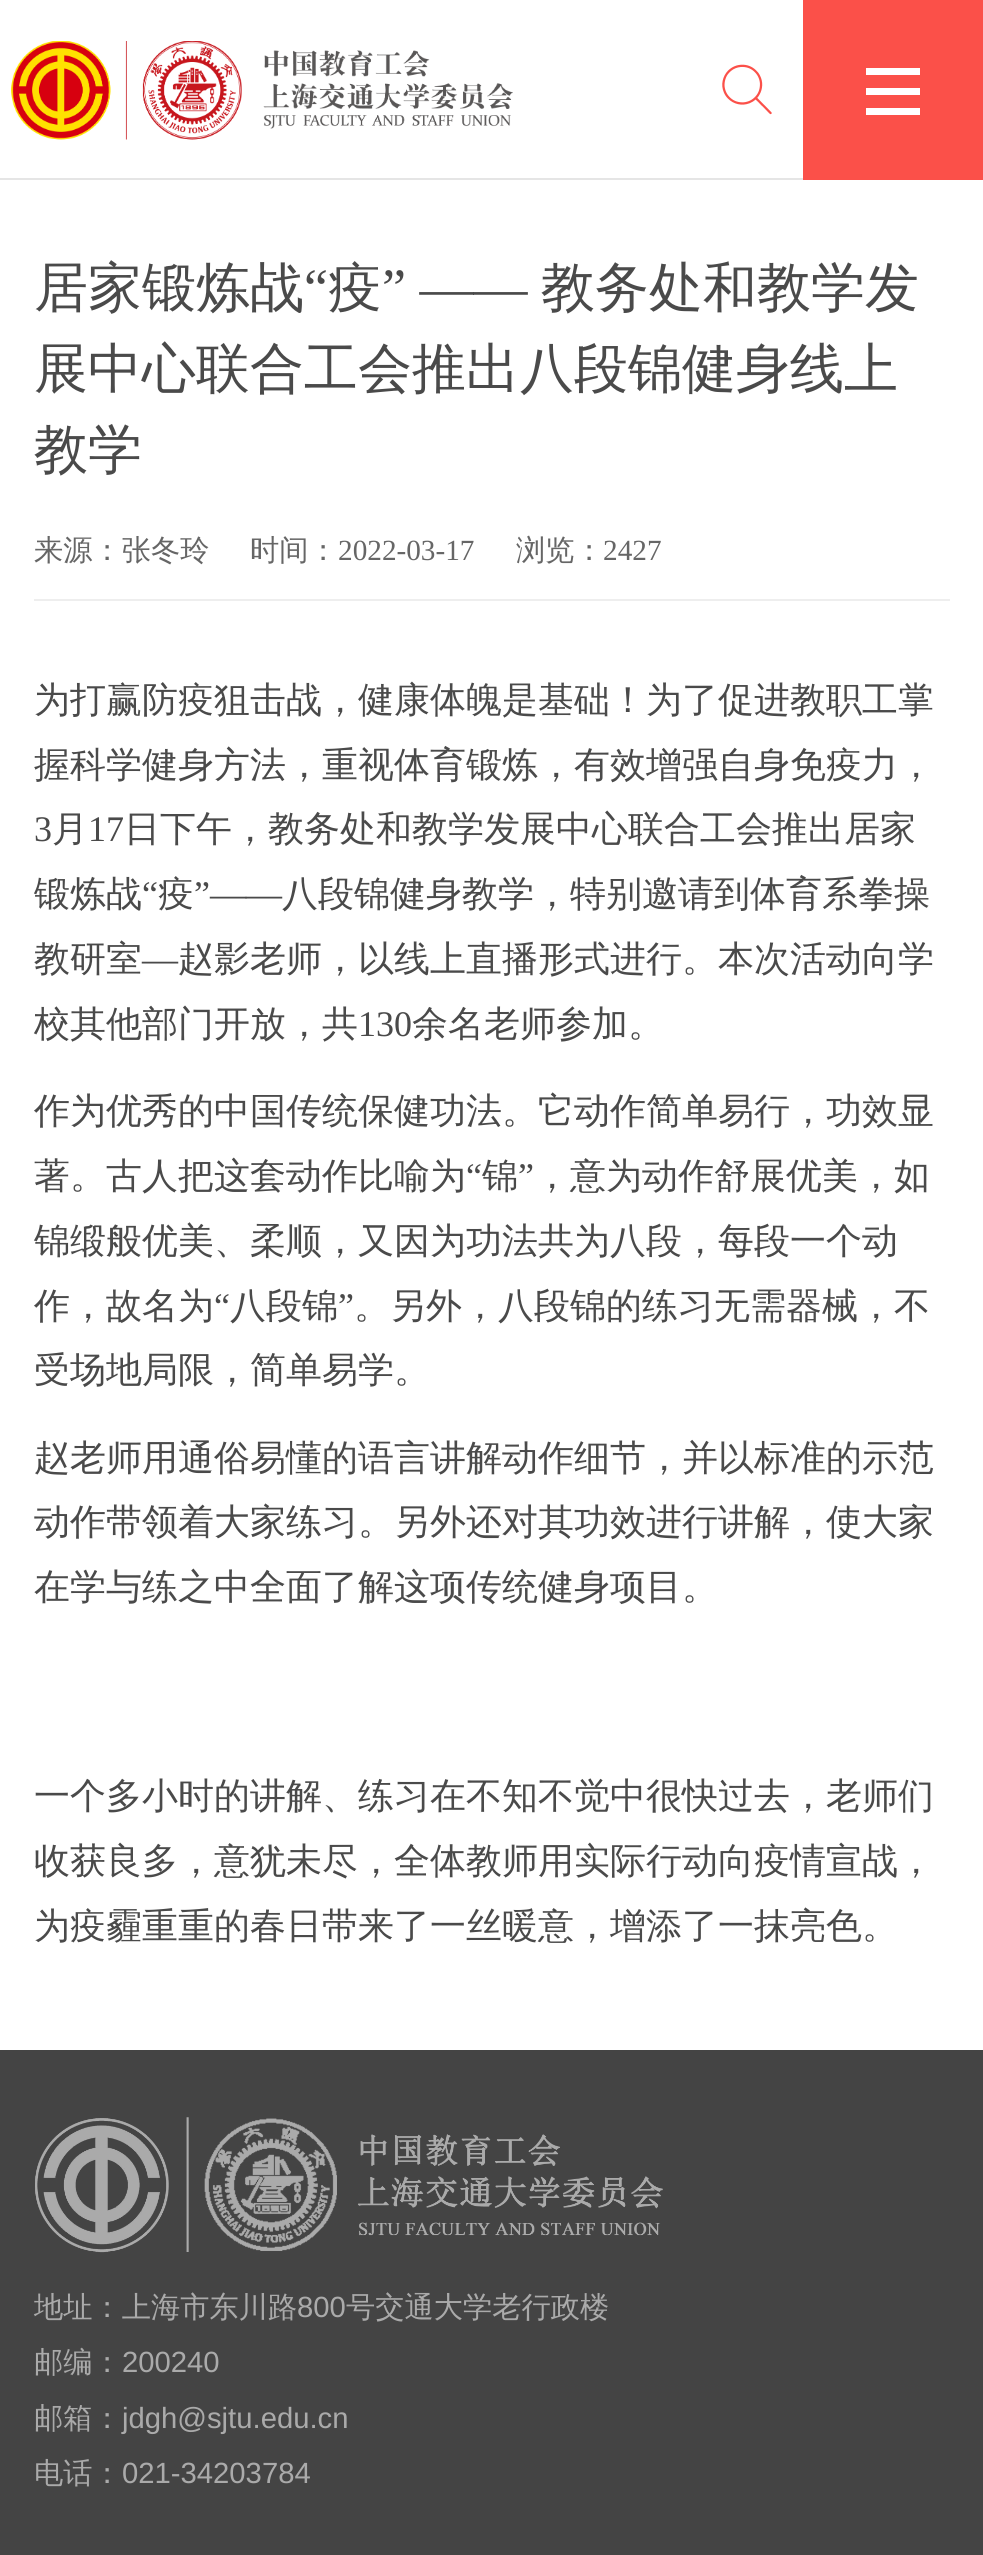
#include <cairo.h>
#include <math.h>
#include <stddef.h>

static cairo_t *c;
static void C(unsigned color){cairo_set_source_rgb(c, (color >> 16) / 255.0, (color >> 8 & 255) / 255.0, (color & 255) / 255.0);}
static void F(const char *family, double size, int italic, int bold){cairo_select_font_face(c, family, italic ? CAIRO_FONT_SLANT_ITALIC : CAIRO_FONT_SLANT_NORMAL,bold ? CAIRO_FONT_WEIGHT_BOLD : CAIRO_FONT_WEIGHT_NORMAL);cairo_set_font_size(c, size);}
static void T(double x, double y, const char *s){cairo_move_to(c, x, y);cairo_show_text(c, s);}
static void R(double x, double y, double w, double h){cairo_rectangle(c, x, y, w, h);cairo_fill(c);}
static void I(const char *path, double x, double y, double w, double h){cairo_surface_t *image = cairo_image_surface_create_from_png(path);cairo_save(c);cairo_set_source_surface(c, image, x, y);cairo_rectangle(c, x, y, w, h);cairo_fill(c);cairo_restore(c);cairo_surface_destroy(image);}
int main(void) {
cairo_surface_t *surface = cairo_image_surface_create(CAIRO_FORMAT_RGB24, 983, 2555);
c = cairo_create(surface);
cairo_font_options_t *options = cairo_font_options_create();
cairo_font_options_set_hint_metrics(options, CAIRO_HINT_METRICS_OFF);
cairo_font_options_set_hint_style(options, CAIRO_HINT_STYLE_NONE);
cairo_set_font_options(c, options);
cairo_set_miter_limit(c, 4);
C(0xffffff);
cairo_paint(c);
C(0xe5e5e5);
R(0,178,803,2);
I("1.png",11,41,502,99);
I("2.png",722,64,50,51);
C(0xfb5049);
R(803,0,180,180);
C(0xffffff);
R(866,68,54,7);
R(866,88,54,7);
R(866,108,54,7);
F("WenQuanYi Zen Hei Medium",54,0,0);
C(0x4a4a4a);
T(34,306,"居家锻炼战");
F("Liberation Serif",54,0,0);
T(304,306,"“");
F("WenQuanYi Zen Hei Medium",54,0,0);
T(328,306,"疫");
F("Liberation Serif",54,0,0);
T(382,306,"” ——");
F("WenQuanYi Zen Hei Medium",54,0,0);
T(541,306,"教务处和教学发");
T(34,387,"展中心联合工会推出八段锦健身线上");
T(34,468,"教学");
C(0xeeeeee);
R(34,599,916,2);
F("WenQuanYi Zen Hei Medium",29.25,0,0);
C(0x666666);
T(34,560,"来源：张冬玲");
T(250,560,"时间：");
F("Liberation Serif",29.25,0,0);
T(338,560,"2022-03-17");
F("WenQuanYi Zen Hei Medium",29.25,0,0);
T(516,560,"浏览：");
F("Liberation Serif",29.25,0,0);
T(603,560,"2427");
F("WenQuanYi Zen Hei Medium",36,0,0);
C(0x4a4a4a);
T(34,712,"为打赢防疫狙击战，健康体魄是基础！为了促进教职工掌");
T(34,777,"握科学健身方法，重视体育锻炼，有效增强自身免疫力，");
F("Liberation Serif",36,0,0);
T(34,841,"3");
F("WenQuanYi Zen Hei Medium",36,0,0);
T(52,841,"月");
F("Liberation Serif",36,0,0);
T(88,841,"17");
F("WenQuanYi Zen Hei Medium",36,0,0);
T(124,841,"日下午，教务处和教学发展中心联合工会推出居家");
T(34,906,"锻炼战");
F("Liberation Serif",36,0,0);
T(142,906,"“");
F("WenQuanYi Zen Hei Medium",36,0,0);
T(158,906,"疫");
F("Liberation Serif",36,0,0);
T(194,906,"”——");
F("WenQuanYi Zen Hei Medium",36,0,0);
T(282,906,"八段锦健身教学，特别邀请到体育系拳操");
T(34,971,"教研室");
F("Liberation Serif",36,0,0);
T(142,971,"—");
F("WenQuanYi Zen Hei Medium",36,0,0);
T(178,971,"赵影老师，以线上直播形式进行。本次活动向学");
T(34,1036,"校其他部门开放，共");
F("Liberation Serif",36,0,0);
T(358,1036,"130");
F("WenQuanYi Zen Hei Medium",36,0,0);
T(412,1036,"余名老师参加。");
T(34,1123,"作为优秀的中国传统保健功法。它动作简单易行，功效显");
T(34,1188,"著。古人把这套动作比喻为");
F("Liberation Serif",36,0,0);
T(466,1188,"“");
F("WenQuanYi Zen Hei Medium",36,0,0);
T(482,1188,"锦");
F("Liberation Serif",36,0,0);
T(518,1188,"”");
F("WenQuanYi Zen Hei Medium",36,0,0);
T(534,1188,"，意为动作舒展优美，如");
T(34,1253,"锦缎般优美、柔顺，又因为功法共为八段，每段一个动");
T(34,1318,"作，故名为");
F("Liberation Serif",36,0,0);
T(214,1318,"“");
F("WenQuanYi Zen Hei Medium",36,0,0);
T(230,1318,"八段锦");
F("Liberation Serif",36,0,0);
T(338,1318,"”");
F("WenQuanYi Zen Hei Medium",36,0,0);
T(354,1318,"。另外，八段锦的练习无需器械，不");
T(34,1382,"受场地局限，简单易学。");
T(34,1470,"赵老师用通俗易懂的语言讲解动作细节，并以标准的示范");
T(34,1534,"动作带领着大家练习。另外还对其功效进行讲解，使大家");
T(34,1599,"在学与练之中全面了解这项传统健身项目。");
T(34,1808,"一个多小时的讲解、练习在不知不觉中很快过去，老师们");
T(34,1873,"收获良多，意犹未尽，全体教师用实际行动向疫情宣战，");
T(34,1938,"为疫霾重重的春日带来了一丝暖意，增添了一抹亮色。");
C(0x444444);
R(0,2050,983,505);
I("3.png",35,2117,628,136);
F("WenQuanYi Zen Hei Medium",29.25,0,0);
C(0xaaaaaa);
T(34,2317,"地址：上海市东川路");
F("Liberation Sans",29.25,0,0);
T(297,2317,"800");
F("WenQuanYi Zen Hei Medium",29.25,0,0);
T(346,2317,"号交通大学老行政楼");
T(34,2372,"邮编：");
F("Liberation Sans",29.25,0,0);
T(122,2372,"200240");
F("WenQuanYi Zen Hei Medium",29.25,0,0);
T(34,2428,"邮箱：");
F("Liberation Sans",29.25,0,0);
T(122,2428,"jdgh@sjtu.edu.cn");
F("WenQuanYi Zen Hei Medium",29.25,0,0);
T(34,2483,"电话：");
F("Liberation Sans",29.25,0,0);
T(122,2483,"021-34203784");
cairo_surface_write_to_png(surface, "o.png");
cairo_font_options_destroy(options);
cairo_destroy(c);
cairo_surface_destroy(surface);
return 0;
}
